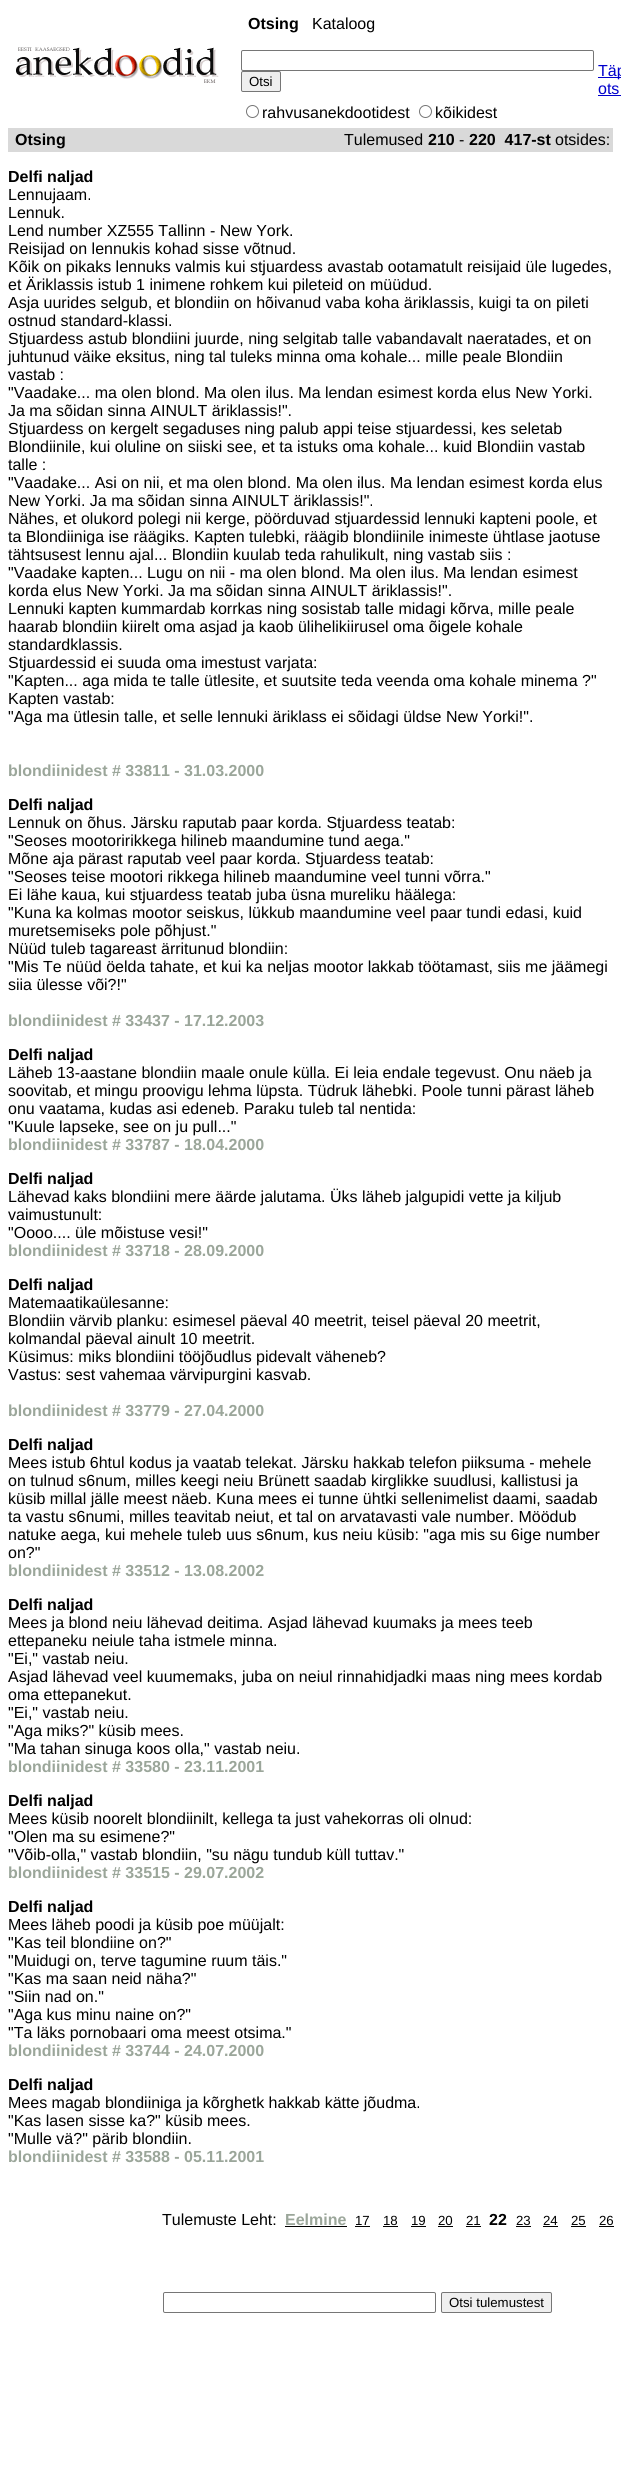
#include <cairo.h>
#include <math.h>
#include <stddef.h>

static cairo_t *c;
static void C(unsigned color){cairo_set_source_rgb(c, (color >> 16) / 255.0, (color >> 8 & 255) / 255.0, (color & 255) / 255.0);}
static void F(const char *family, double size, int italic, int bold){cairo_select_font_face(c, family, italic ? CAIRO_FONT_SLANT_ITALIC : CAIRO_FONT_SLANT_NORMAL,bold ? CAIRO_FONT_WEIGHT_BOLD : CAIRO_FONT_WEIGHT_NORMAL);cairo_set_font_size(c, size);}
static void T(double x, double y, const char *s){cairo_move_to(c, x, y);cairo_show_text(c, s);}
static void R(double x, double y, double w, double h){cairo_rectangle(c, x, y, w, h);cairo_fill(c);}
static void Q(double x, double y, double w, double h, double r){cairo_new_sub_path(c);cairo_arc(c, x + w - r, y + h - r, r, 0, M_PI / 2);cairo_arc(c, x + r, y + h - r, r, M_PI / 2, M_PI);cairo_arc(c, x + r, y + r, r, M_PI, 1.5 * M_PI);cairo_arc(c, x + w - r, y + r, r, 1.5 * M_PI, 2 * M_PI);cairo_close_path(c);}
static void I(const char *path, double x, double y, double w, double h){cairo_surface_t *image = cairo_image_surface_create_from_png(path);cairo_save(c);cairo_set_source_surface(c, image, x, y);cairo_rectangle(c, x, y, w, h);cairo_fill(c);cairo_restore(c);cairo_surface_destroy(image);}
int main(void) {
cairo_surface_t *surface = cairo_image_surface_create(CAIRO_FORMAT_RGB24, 621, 2468);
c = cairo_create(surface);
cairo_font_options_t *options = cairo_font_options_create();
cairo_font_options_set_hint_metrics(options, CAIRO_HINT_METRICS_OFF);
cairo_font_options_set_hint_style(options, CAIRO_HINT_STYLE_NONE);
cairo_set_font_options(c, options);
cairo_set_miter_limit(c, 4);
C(0xffffff);
cairo_paint(c);
I("1.png",16,47,203,36);
F("Liberation Sans",16,0,1);
C(0x000000);
T(248,29,"Otsing");
F("Liberation Sans",16,0,0);
T(312,29,"Kataloog");
Q(241.5,50.5,352,20,1.5);
C(0x767676);
cairo_set_line_width(c,1);
cairo_stroke(c);
C(0xefefef);
Q(241.5,71.5,39,20,1.5);
cairo_fill_preserve(c);
C(0x767676);
cairo_stroke(c);
F("Liberation Sans",13.25,0,0);
C(0x000000);
T(249,86,"Otsi");
C(0x0000cc);
R(598,77,23,1);
F("Liberation Sans",16,0,0);
T(598,76,"Täp");
T(598,94,"ots");
R(598,95,23,1);
cairo_new_path(c);
cairo_arc(c,252.5,111.5,6,0,2 * M_PI);
C(0x767676);
cairo_stroke(c);
C(0x000000);
T(262,118,"rahvusanekdootidest");
cairo_new_path(c);
cairo_arc(c,425.5,111.5,6,0,2 * M_PI);
C(0x767676);
cairo_stroke(c);
C(0x000000);
T(435,118,"kõikidest");
C(0xd9d9d9);
R(8,128,605,24);
F("Liberation Sans",16,0,1);
C(0x000000);
T(15,145,"Otsing");
F("Liberation Sans",16,0,0);
T(344,145,"Tulemused");
F("Liberation Sans",16,0,1);
T(428,145,"210");
F("Liberation Sans",16,0,0);
T(459,145,"-");
F("Liberation Sans",16,0,1);
T(469,145,"220  417-st");
F("Liberation Sans",16,0,0);
T(555,145,"otsides:");
F("Liberation Sans",16,0,1);
T(8,182,"Delfi naljad");
F("Liberation Sans",16,0,0);
T(8,200,"Lennujaam.");
T(8,218,"Lennuk.");
T(8,236,"Lend number XZ555 Tallinn - New York.");
T(8,254,"Reisijad on lennukis kohad sisse võtnud.");
T(8,272,"Kõik on pikaks lennuks valmis kui stjuardess avastab ootamatult reisijaid üle lugedes,");
T(8,290,"et Äriklassis istub 1 inimene rohkem kui pileteid on müüdud.");
T(8,308,"Asja uurides selgub, et blondiin on hõivanud vaba koha äriklassis, kuigi ta on pileti");
T(8,326,"ostnud standard-klassi.");
T(8,344,"Stjuardess astub blondiini juurde, ning selgitab talle vabandavalt naeratades, et on");
T(8,362,"juhtunud väike eksitus, ning tal tuleks minna oma kohale... mille peale Blondiin");
T(8,380,"vastab :");
T(8,398,"\"Vaadake... ma olen blond. Ma olen ilus. Ma lendan esimest korda elus New Yorki.");
T(8,416,"Ja ma sõidan sinna AINULT äriklassis!\".");
T(8,434,"Stjuardess on kergelt segaduses ning palub appi teise stjuardessi, kes seletab");
T(8,452,"Blondiinile, kui oluline on siiski see, et ta istuks oma kohale... kuid Blondiin vastab");
T(8,470,"talle :");
T(8,488,"\"Vaadake... Asi on nii, et ma olen blond. Ma olen ilus. Ma lendan esimest korda elus");
T(8,506,"New Yorki. Ja ma sõidan sinna AINULT äriklassis!\".");
T(8,524,"Nähes, et olukord polegi nii kerge, pöörduvad stjuardessid lennuki kapteni poole, et");
T(8,542,"ta Blondiiniga ise räägiks. Kapten tulebki, räägib blondiinile inimeste ühtlase jaotuse");
T(8,560,"tähtsusest lennu ajal... Blondiin kuulab teda rahulikult, ning vastab siis :");
T(8,578,"\"Vaadake kapten... Lugu on nii - ma olen blond. Ma olen ilus. Ma lendan esimest");
T(8,596,"korda elus New Yorki. Ja ma sõidan sinna AINULT äriklassis!\".");
T(8,614,"Lennuki kapten kummardab korrkas ning sosistab talle midagi kõrva, mille peale");
T(8,632,"haarab blondiin kiirelt oma asjad ja kaob ülihelikiirusel oma õigele kohale");
T(8,650,"standardklassis.");
T(8,668,"Stjuardessid ei suuda oma imestust varjata:");
T(8,686,"\"Kapten... aga mida te talle ütlesite, et suutsite teda veenda oma kohale minema ?\"");
T(8,704,"Kapten vastab:");
T(8,722,"\"Aga ma ütlesin talle, et selle lennuki äriklass ei sõidagi üldse New Yorki!\".");
F("Liberation Sans",16,0,1);
C(0x9ba69a);
T(8,776,"blondiinidest # 33811 - 31.03.2000");
C(0x000000);
T(8,810,"Delfi naljad");
F("Liberation Sans",16,0,0);
T(8,828,"Lennuk on õhus. Järsku raputab paar korda. Stjuardess teatab:");
T(8,846,"\"Seoses mootoririkkega hilineb maandumine tund aega.\"");
T(8,864,"Mõne aja pärast raputab veel paar korda. Stjuardess teatab:");
T(8,882,"\"Seoses teise mootori rikkega hilineb maandumine veel tunni võrra.\"");
T(8,900,"Ei lähe kaua, kui stjuardess teatab juba üsna mureliku häälega:");
T(8,918,"\"Kuna ka kolmas mootor seiskus, lükkub maandumine veel paar tundi edasi, kuid");
T(8,936,"muretsemiseks pole põhjust.\"");
T(8,954,"Nüüd tuleb tagareast ärritunud blondiin:");
T(8,972,"\"Mis Te nüüd öelda tahate, et kui ka neljas mootor lakkab töötamast, siis me jäämegi");
T(8,990,"siia ülesse või?!\"");
F("Liberation Sans",16,0,1);
C(0x9ba69a);
T(8,1026,"blondiinidest # 33437 - 17.12.2003");
C(0x000000);
T(8,1060,"Delfi naljad");
F("Liberation Sans",16,0,0);
T(8,1078,"Läheb 13-aastane blondiin maale onule külla. Ei leia endale tegevust. Onu näeb ja");
T(8,1096,"soovitab, et mingu proovigu lehma lüpsta. Tüdruk lähebki. Poole tunni pärast läheb");
T(8,1114,"onu vaatama, kudas asi edeneb. Paraku tuleb tal nentida:");
T(8,1132,"\"Kuule lapseke, see on ju pull...\"");
F("Liberation Sans",16,0,1);
C(0x9ba69a);
T(8,1150,"blondiinidest # 33787 - 18.04.2000");
C(0x000000);
T(8,1184,"Delfi naljad");
F("Liberation Sans",16,0,0);
T(8,1202,"Lähevad kaks blondiini mere äärde jalutama. Üks läheb jalgupidi vette ja kiljub");
T(8,1220,"vaimustunult:");
T(8,1238,"\"Oooo.... üle mõistuse vesi!\"");
F("Liberation Sans",16,0,1);
C(0x9ba69a);
T(8,1256,"blondiinidest # 33718 - 28.09.2000");
C(0x000000);
T(8,1290,"Delfi naljad");
F("Liberation Sans",16,0,0);
T(8,1308,"Matemaatikaülesanne:");
T(8,1326,"Blondiin värvib planku: esimesel päeval 40 meetrit, teisel päeval 20 meetrit,");
T(8,1344,"kolmandal päeval ainult 10 meetrit.");
T(8,1362,"Küsimus: miks blondiini tööjõudlus pidevalt väheneb?");
T(8,1380,"Vastus: sest vahemaa värvipurgini kasvab.");
F("Liberation Sans",16,0,1);
C(0x9ba69a);
T(8,1416,"blondiinidest # 33779 - 27.04.2000");
C(0x000000);
T(8,1450,"Delfi naljad");
F("Liberation Sans",16,0,0);
T(8,1468,"Mees istub 6htul kodus ja vaatab telekat. Järsku hakkab telefon piiksuma - mehele");
T(8,1486,"on tulnud s6num, milles keegi neiu Brünett saadab kirglikke suudlusi, kallistusi ja");
T(8,1504,"küsib millal jälle meest näeb. Kuna mees ei tunne ühtki sellenimelist daami, saadab");
T(8,1522,"ta vastu s6numi, milles teavitab neiut, et tal on arvatavasti vale number. Möödub");
T(8,1540,"natuke aega, kui mehele tuleb uus s6num, kus neiu küsib: \"aga mis su 6ige number");
T(8,1558,"on?\"");
F("Liberation Sans",16,0,1);
C(0x9ba69a);
T(8,1576,"blondiinidest # 33512 - 13.08.2002");
C(0x000000);
T(8,1610,"Delfi naljad");
F("Liberation Sans",16,0,0);
T(8,1628,"Mees ja blond neiu lähevad deitima. Asjad lähevad kuumaks ja mees teeb");
T(8,1646,"ettepaneku neiule taha istmele minna.");
T(8,1664,"\"Ei,\" vastab neiu.");
T(8,1682,"Asjad lähevad veel kuumemaks, juba on neiul rinnahidjadki maas ning mees kordab");
T(8,1700,"oma ettepanekut.");
T(8,1718,"\"Ei,\" vastab neiu.");
T(8,1736,"\"Aga miks?\" küsib mees.");
T(8,1754,"\"Ma tahan sinuga koos olla,\" vastab neiu.");
F("Liberation Sans",16,0,1);
C(0x9ba69a);
T(8,1772,"blondiinidest # 33580 - 23.11.2001");
C(0x000000);
T(8,1806,"Delfi naljad");
F("Liberation Sans",16,0,0);
T(8,1824,"Mees küsib noorelt blondiinilt, kellega ta just vahekorras oli olnud:");
T(8,1842,"\"Olen ma su esimene?\"");
T(8,1860,"\"Võib-olla,\" vastab blondiin, \"su nägu tundub küll tuttav.\"");
F("Liberation Sans",16,0,1);
C(0x9ba69a);
T(8,1878,"blondiinidest # 33515 - 29.07.2002");
C(0x000000);
T(8,1912,"Delfi naljad");
F("Liberation Sans",16,0,0);
T(8,1930,"Mees läheb poodi ja küsib poe müüjalt:");
T(8,1948,"\"Kas teil blondiine on?\"");
T(8,1966,"\"Muidugi on, terve tagumine ruum täis.\"");
T(8,1984,"\"Kas ma saan neid näha?\"");
T(8,2002,"\"Siin nad on.\"");
T(8,2020,"\"Aga kus minu naine on?\"");
T(8,2038,"\"Ta läks pornobaari oma meest otsima.\"");
F("Liberation Sans",16,0,1);
C(0x9ba69a);
T(8,2056,"blondiinidest # 33744 - 24.07.2000");
C(0x000000);
T(8,2090,"Delfi naljad");
F("Liberation Sans",16,0,0);
T(8,2108,"Mees magab blondiiniga ja kõrghetk hakkab kätte jõudma.");
T(8,2126,"\"Kas lasen sisse ka?\" küsib mees.");
T(8,2144,"\"Mulle vä?\" pärib blondiin.");
F("Liberation Sans",16,0,1);
C(0x9ba69a);
T(8,2162,"blondiinidest # 33588 - 05.11.2001");
F("Liberation Sans",16,0,0);
C(0x000000);
T(162,2225,"Tulemuste Leht:");
F("Liberation Sans",16,0,1);
C(0x9ba69a);
T(285,2225,"Eelmine");
C(0x000000);
R(285,2226,62,1);
F("Liberation Sans",13.25,0,0);
T(355,2225,"17");
R(355,2226,15,1);
T(383,2225,"18");
R(383,2226,15,1);
T(411,2225,"19");
R(411,2226,15,1);
T(438,2225,"20");
R(438,2226,15,1);
T(466,2225,"21");
R(466,2226,15,1);
F("Liberation Sans",16,0,1);
T(489,2225,"22");
F("Liberation Sans",13.25,0,0);
T(516,2225,"23");
R(516,2226,15,1);
T(543,2225,"24");
R(543,2226,15,1);
T(571,2225,"25");
R(571,2226,15,1);
T(599,2225,"26");
R(599,2226,15,1);
Q(163.5,2292.5,272,20,1.5);
C(0x767676);
cairo_stroke(c);
C(0xefefef);
Q(441.5,2292.5,110,20,1.5);
cairo_fill_preserve(c);
C(0x767676);
cairo_stroke(c);
C(0x000000);
T(449,2307,"Otsi tulemustest");
cairo_surface_write_to_png(surface, "o.png");
cairo_font_options_destroy(options);
cairo_destroy(c);
cairo_surface_destroy(surface);
return 0;
}
